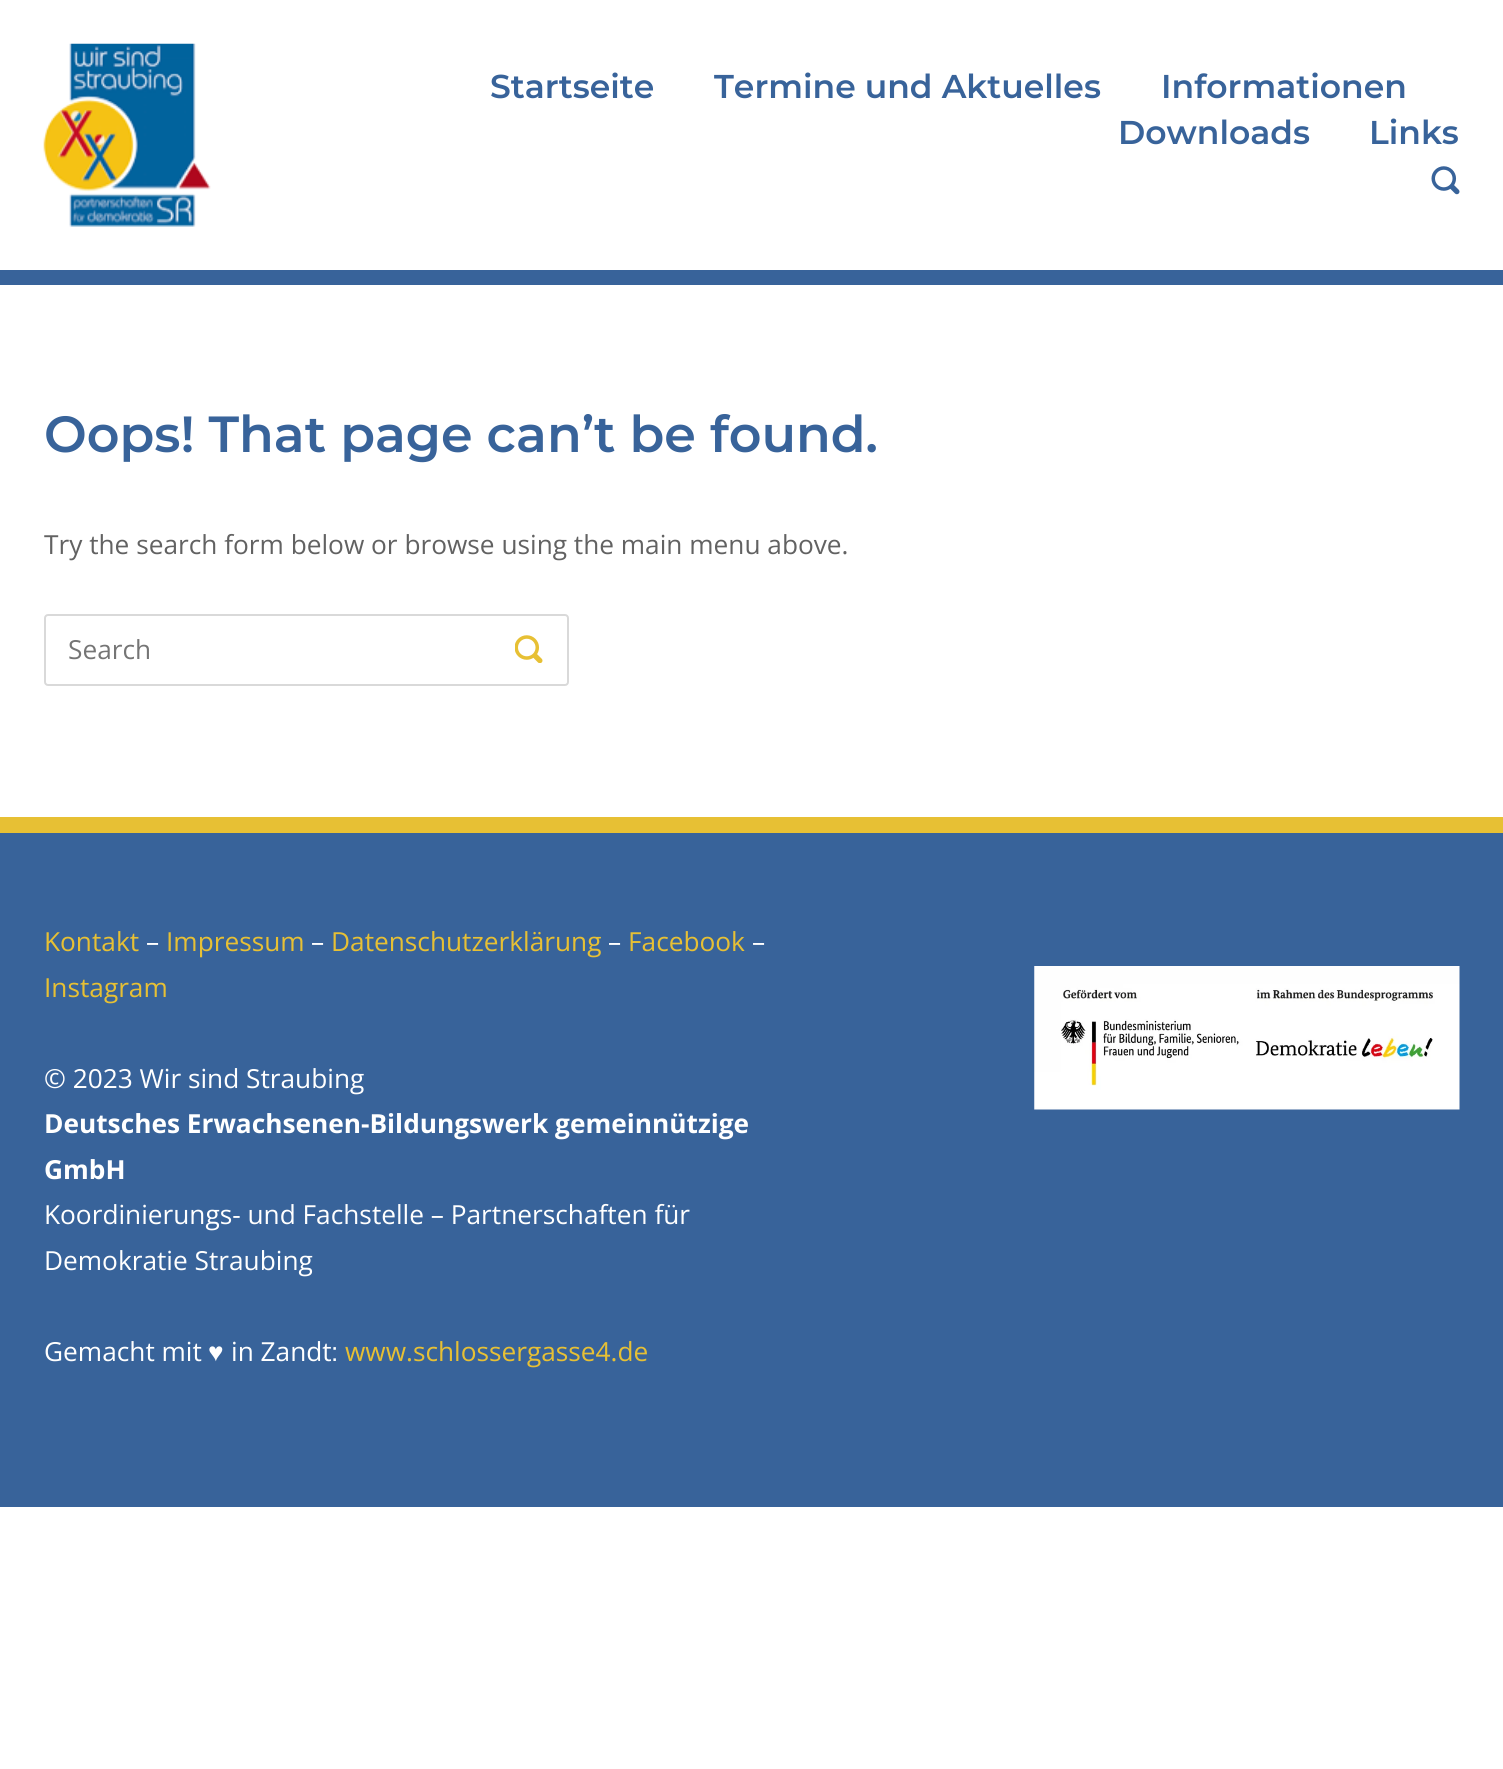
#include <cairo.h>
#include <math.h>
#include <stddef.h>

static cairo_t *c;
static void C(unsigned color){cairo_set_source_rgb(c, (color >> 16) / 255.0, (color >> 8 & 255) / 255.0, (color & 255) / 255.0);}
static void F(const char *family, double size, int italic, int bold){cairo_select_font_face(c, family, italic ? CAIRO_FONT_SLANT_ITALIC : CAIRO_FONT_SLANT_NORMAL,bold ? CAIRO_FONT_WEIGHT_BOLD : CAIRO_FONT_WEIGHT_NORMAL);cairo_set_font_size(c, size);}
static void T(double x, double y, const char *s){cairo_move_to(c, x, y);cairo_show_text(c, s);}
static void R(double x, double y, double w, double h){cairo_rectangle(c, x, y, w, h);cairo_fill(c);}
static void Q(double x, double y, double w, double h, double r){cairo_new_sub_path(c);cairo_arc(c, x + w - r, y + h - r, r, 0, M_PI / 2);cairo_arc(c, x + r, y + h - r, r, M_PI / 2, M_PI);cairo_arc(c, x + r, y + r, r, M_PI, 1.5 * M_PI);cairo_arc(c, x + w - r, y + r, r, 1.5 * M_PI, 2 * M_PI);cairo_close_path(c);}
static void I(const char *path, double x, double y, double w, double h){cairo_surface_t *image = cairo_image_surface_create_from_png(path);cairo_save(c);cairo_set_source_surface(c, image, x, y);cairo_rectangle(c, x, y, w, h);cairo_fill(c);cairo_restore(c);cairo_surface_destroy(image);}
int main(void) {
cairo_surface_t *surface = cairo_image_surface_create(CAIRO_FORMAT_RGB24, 1503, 1769);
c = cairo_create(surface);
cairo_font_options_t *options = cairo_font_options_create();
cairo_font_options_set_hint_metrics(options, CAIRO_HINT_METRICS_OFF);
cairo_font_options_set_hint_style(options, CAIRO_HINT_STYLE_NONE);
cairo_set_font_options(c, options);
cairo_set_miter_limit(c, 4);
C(0xffffff);
cairo_paint(c);
C(0x38639a);
R(0,270,1503,15);
I("1.png",43,43,168,184);
F("Montserrat SemiBold",33,0,0);
T(490,98,"Startseite");
T(714,98,"Termine und Aktuelles");
T(1161,98,"Informationen");
T(1118,144,"Downloads");
T(1369,144,"Links");
I("2.png",1431,166,29,29);
F("Montserrat SemiBold",50.75,0,0);
T(44,452,"Oops! That page can’t be found.");
F("Open Sans",26.25,0,0);
C(0x626262);
T(44,554,"Try the search form below or browse using the main menu above.");
Q(45,615,523,70,3);
C(0xd9d9d9);
cairo_stroke(c);
C(0x757575);
T(68,659,"Search");
I("3.png",515,635,28,28);
C(0x38639a);
R(0,833,1503,674);
C(0xe7c034);
R(0,817,1503,16);
T(44,951,"Kontakt");
C(0xffffff);
T(146,951,"–");
C(0xe7c034);
T(166,951,"Impressum");
C(0xffffff);
T(311,951,"–");
C(0xe7c034);
T(331,951,"Datenschutzerklärung");
C(0xffffff);
T(608,951,"–");
C(0xe7c034);
T(628,951,"Facebook");
C(0xffffff);
T(752,951,"–");
C(0xe7c034);
T(44,997,"Instagram");
C(0xffffff);
T(44,1088,"© 2023 Wir sind Straubing");
F("Open Sans",26.25,0,1);
T(44,1133,"Deutsches Erwachsenen-Bildungswerk gemeinnützige");
T(44,1179,"GmbH");
F("Open Sans",26.25,0,0);
T(44,1224,"Koordinierungs- und Fachstelle – Partnerschaften für");
T(44,1270,"Demokratie Straubing");
T(44,1361,"Gemacht mit");
F("Liberation Sans",26.25,0,0);
T(208,1361,"♥");
F("Open Sans",26.25,0,0);
T(231,1361,"in Zandt");
F("Liberation Sans",26.25,0,0);
T(331,1361,":");
F("Open Sans",26.25,0,0);
C(0xe7c034);
T(345,1361,"www.schlossergasse4.de");
I("4.png",1034,966,426,144);
cairo_surface_write_to_png(surface, "o.png");
cairo_font_options_destroy(options);
cairo_destroy(c);
cairo_surface_destroy(surface);
return 0;
}
